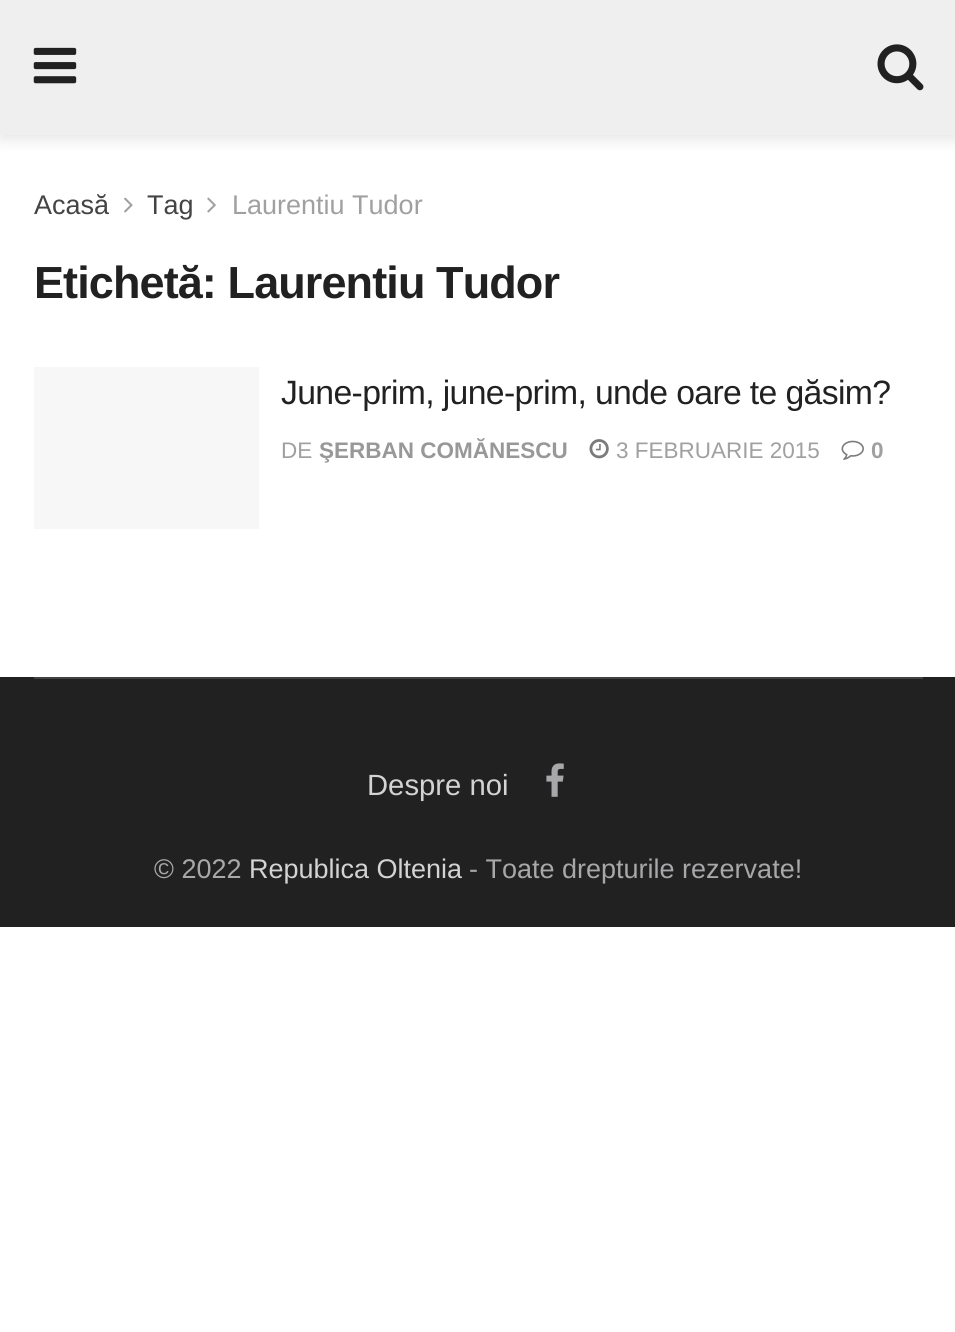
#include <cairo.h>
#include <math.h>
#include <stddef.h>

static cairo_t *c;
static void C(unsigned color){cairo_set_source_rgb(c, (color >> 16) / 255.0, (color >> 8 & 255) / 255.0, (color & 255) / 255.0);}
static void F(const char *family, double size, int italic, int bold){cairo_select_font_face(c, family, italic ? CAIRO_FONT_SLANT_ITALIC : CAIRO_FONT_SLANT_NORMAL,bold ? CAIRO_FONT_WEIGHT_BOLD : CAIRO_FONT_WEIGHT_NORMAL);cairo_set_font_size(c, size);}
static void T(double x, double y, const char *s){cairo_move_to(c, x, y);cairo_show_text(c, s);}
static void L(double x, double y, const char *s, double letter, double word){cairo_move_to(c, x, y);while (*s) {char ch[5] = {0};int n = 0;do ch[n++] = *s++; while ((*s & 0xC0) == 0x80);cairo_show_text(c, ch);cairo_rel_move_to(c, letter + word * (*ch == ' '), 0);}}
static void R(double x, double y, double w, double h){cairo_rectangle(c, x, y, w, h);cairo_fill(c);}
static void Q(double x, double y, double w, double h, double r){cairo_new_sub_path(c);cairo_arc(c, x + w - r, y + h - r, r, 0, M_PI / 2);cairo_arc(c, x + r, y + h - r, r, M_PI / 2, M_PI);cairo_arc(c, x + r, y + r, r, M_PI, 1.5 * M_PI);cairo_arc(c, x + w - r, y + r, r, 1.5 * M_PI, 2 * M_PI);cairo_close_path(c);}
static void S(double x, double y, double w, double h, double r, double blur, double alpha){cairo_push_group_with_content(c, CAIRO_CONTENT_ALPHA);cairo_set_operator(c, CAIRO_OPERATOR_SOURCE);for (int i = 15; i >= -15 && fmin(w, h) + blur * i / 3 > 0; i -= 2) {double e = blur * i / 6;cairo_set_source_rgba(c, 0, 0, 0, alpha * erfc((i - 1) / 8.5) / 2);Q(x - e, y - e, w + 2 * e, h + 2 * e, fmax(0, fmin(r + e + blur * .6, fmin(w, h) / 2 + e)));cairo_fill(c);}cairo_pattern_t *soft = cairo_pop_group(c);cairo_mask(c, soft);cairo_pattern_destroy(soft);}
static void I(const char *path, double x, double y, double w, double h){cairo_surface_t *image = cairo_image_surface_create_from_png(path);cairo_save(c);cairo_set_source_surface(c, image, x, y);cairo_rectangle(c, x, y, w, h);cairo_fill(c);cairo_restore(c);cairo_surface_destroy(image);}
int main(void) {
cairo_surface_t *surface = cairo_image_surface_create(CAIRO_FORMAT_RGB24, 955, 1332);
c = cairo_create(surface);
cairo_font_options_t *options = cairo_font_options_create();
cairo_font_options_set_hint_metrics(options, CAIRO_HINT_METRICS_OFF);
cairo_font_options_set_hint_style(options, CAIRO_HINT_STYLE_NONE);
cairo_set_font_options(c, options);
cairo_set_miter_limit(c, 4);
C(0xffffff);
cairo_paint(c);
C(0x000000);
S(0,5,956,135,0,7,.1);
C(0xefefef);
R(0,0,955,135);
I("1.png",33,47,44,37);
I("2.png",877,44,47,47);
F("Liberation Sans",27,0,0);
C(0x444444);
T(34,214,"Acasă");
I("3.png",124,197,9,16);
T(147,214,"Tag");
I("4.png",207,197,9,16);
C(0xa0a0a0);
T(232,214,"Laurentiu Tudor");
F("Liberation Sans",45,0,1);
C(0x212121);
L(34,298,"Etichetă: Laurentiu Tudor",-.9,0);
C(0xf7f7f7);
R(34,367,225,162);
F("Liberation Sans",33.75,0,0);
C(0x212121);
L(281,404,"June-prim, june-prim, unde oare te găsim?",-.65,0);
F("Liberation Sans",22.5,0,0);
C(0xa0a0a0);
T(281,458,"DE");
F("Liberation Sans",22.5,0,1);
C(0x989898);
T(319,458,"ŞERBAN COMĂNESCU");
I("5.png",589,439,20,20);
F("Liberation Sans",22.5,0,0);
C(0xa0a0a0);
T(616,458,"3 FEBRUARIE 2015");
I("6.png",841,440,23,20);
F("Liberation Sans",22.5,0,1);
T(871,458,"0");
C(0x212121);
R(0,677,955,250);
C(0x424242);
R(34,677,889,2);
F("Liberation Sans",29.25,0,0);
C(0xd3d3d3);
T(367,795,"Despre noi");
I("7.png",546,763,18,34);
F("Liberation Sans",27,0,0);
C(0xa8a8aa);
T(154,878,"© 2022");
C(0xd3d3d3);
T(249,878,"Republica Oltenia");
C(0xa8a8aa);
T(469,878,"- Toate drepturile rezervate!");
cairo_surface_write_to_png(surface, "o.png");
cairo_font_options_destroy(options);
cairo_destroy(c);
cairo_surface_destroy(surface);
return 0;
}
